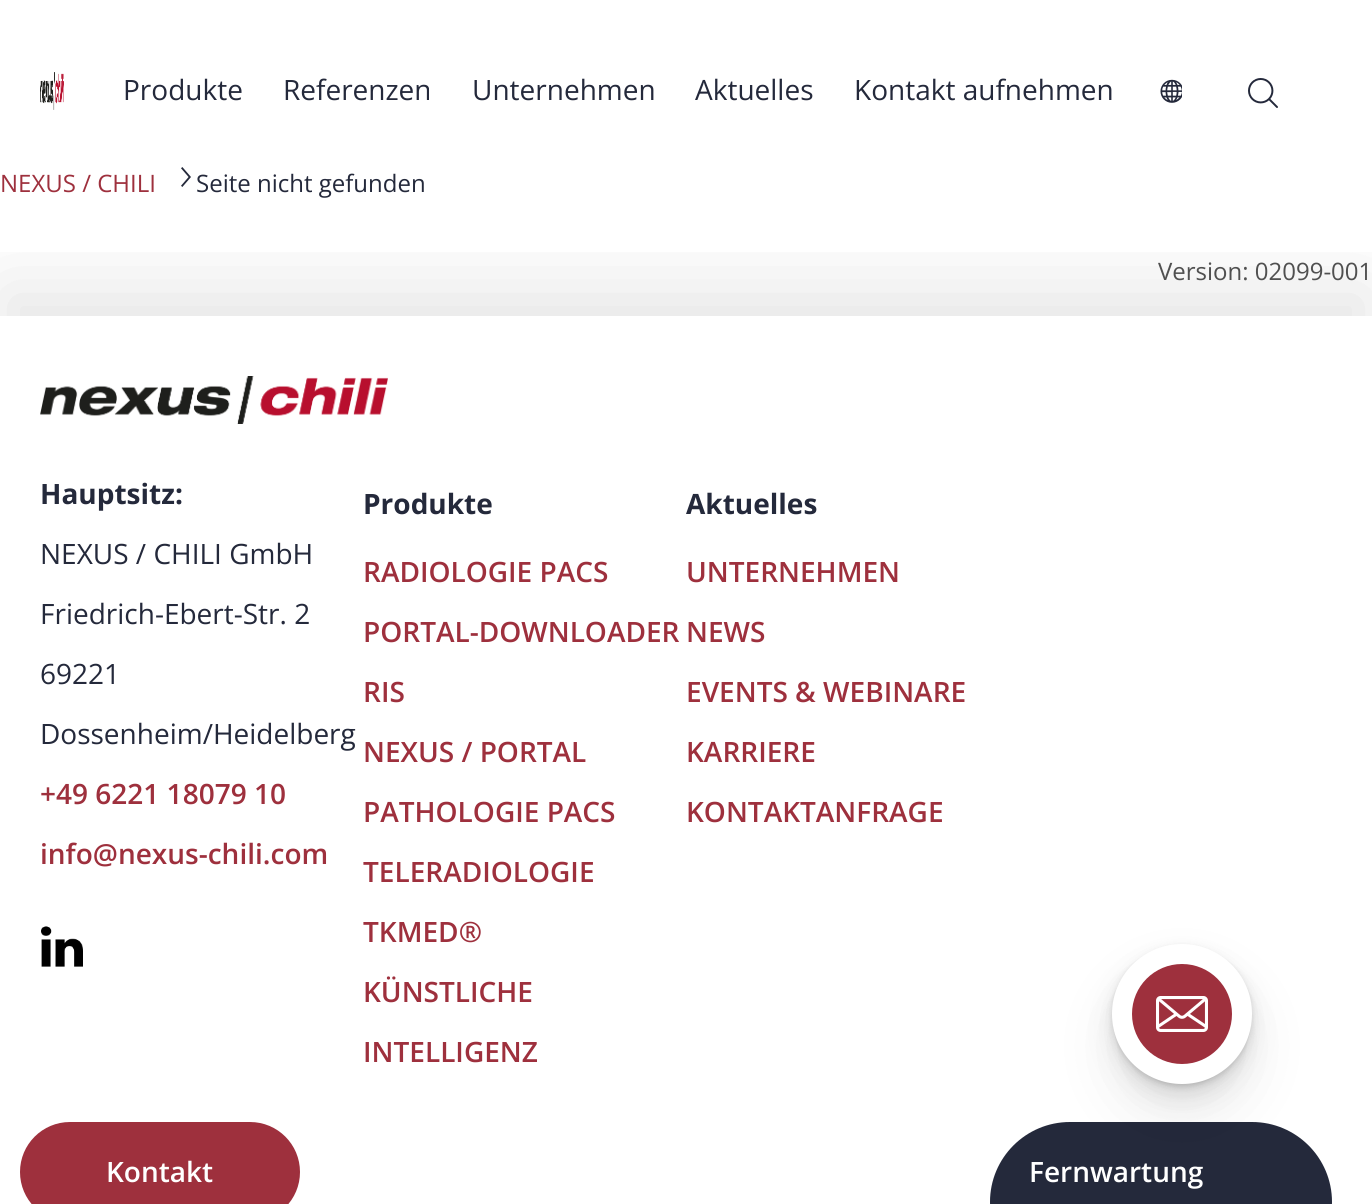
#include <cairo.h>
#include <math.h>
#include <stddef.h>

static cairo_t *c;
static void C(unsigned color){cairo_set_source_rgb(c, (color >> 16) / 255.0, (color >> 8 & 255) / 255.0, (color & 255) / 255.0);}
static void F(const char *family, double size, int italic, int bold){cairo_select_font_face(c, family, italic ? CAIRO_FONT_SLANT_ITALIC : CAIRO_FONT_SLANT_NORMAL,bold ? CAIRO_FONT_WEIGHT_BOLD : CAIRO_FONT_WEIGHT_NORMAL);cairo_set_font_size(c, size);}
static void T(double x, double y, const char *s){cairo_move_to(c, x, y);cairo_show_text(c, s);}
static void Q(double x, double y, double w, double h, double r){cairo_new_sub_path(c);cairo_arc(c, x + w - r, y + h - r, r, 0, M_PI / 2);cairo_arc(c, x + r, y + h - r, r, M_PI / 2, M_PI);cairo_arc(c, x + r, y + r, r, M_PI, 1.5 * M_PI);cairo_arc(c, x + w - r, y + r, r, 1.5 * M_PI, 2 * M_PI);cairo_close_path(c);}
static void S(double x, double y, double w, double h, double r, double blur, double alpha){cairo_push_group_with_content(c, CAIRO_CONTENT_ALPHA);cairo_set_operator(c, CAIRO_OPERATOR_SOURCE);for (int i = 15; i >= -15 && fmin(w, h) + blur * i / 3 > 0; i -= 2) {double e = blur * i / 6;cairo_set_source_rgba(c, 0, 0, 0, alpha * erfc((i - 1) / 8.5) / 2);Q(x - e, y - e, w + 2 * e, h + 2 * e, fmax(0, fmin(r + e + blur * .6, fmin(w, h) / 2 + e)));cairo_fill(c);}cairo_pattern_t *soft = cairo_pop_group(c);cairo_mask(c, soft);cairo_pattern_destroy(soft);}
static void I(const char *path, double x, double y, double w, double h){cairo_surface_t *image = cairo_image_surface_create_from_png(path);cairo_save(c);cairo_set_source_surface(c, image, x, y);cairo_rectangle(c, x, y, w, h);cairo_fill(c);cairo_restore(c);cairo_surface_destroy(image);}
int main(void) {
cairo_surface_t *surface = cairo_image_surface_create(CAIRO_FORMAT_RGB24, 1372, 1204);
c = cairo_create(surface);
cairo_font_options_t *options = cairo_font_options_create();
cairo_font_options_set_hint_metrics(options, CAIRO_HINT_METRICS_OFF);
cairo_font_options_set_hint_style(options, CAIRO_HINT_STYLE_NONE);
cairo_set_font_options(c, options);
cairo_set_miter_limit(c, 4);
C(0xffffff);
cairo_paint(c);
I("1.png",40,72,24,38);
F("Open Sans",28,0,0);
C(0x24293b);
T(123,100,"Produkte");
T(283,100,"Referenzen");
T(472,100,"Unternehmen");
T(695,100,"Aktuelles");
T(854,100,"Kontakt aufnehmen");
I("2.png",1160,79,22,24);
I("3.png",1248,78,30,30);
cairo_save(c);
cairo_rectangle(c,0,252,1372,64);
cairo_clip(c);
C(0x000000);
S(0,286,1372,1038,0,40,.1);
cairo_restore(c);
F("Open Sans",24,0,0);
C(0x9e303d);
T(0,192,"NEXUS / CHILI");
I("4.png",181,167,10,20);
C(0x24293b);
T(196,192,"Seite nicht gefunden");
C(0x505050);
T(1158,280,"Version: 02099-001");
C(0x24293b);
Q(990,1122,342,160,80);
cairo_fill(c);
C(0x000000);
S(1112,976,140,140,70,32,.07);
S(1112,960,140,140,70,16,.07);
S(1112,952,140,140,70,8,.07);
S(1112,948,140,140,70,4,.07);
S(1112,946,140,140,70,2,.07);
C(0xffffff);
cairo_arc(c,1182,1014,70,0,2 * M_PI);
cairo_fill(c);
C(0x9e303d);
cairo_arc(c,1182,1014,50,0,2 * M_PI);
cairo_fill(c);
I("5.png",1156,996,52,36);
I("6.png",40,376,348,48);
F("Open Sans",28,0,1);
C(0x24293b);
T(40,504,"Hauptsitz:");
F("Open Sans",28,0,0);
T(40,564,"NEXUS / CHILI GmbH");
T(40,624,"Friedrich-Ebert-Str. 2");
T(40,684,"69221");
T(40,744,"Dossenheim/Heidelberg");
F("Open Sans SemiBold",28,0,0);
C(0x9e303d);
T(40,804,"+49 6221 18079 10");
T(40,864,"info@nexus-chili.com");
I("7.png",41,926,42,41);
F("Open Sans",28,0,1);
C(0x24293b);
T(363,514,"Produkte");
F("Open Sans SemiBold",28,0,0);
C(0x9e303d);
T(363,582,"RADIOLOGIE PACS");
T(363,642,"PORTAL-DOWNLOADER");
T(363,702,"RIS");
T(363,762,"NEXUS / PORTAL");
T(363,822,"PATHOLOGIE PACS");
T(363,882,"TELERADIOLOGIE");
T(363,942,"TKMED®");
T(363,1002,"KÜNSTLICHE");
T(363,1062,"INTELLIGENZ");
F("Open Sans",28,0,1);
C(0x24293b);
T(686,514,"Aktuelles");
F("Open Sans SemiBold",28,0,0);
C(0x9e303d);
T(686,582,"UNTERNEHMEN");
T(686,642,"NEWS");
T(686,702,"EVENTS & WEBINARE");
T(686,762,"KARRIERE");
T(686,822,"KONTAKTANFRAGE");
Q(20,1122,280,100,50);
cairo_fill(c);
C(0xffffff);
T(106,1182,"Kontakt");
T(1029,1182,"Fernwartung");
cairo_surface_write_to_png(surface, "o.png");
cairo_font_options_destroy(options);
cairo_destroy(c);
cairo_surface_destroy(surface);
return 0;
}
